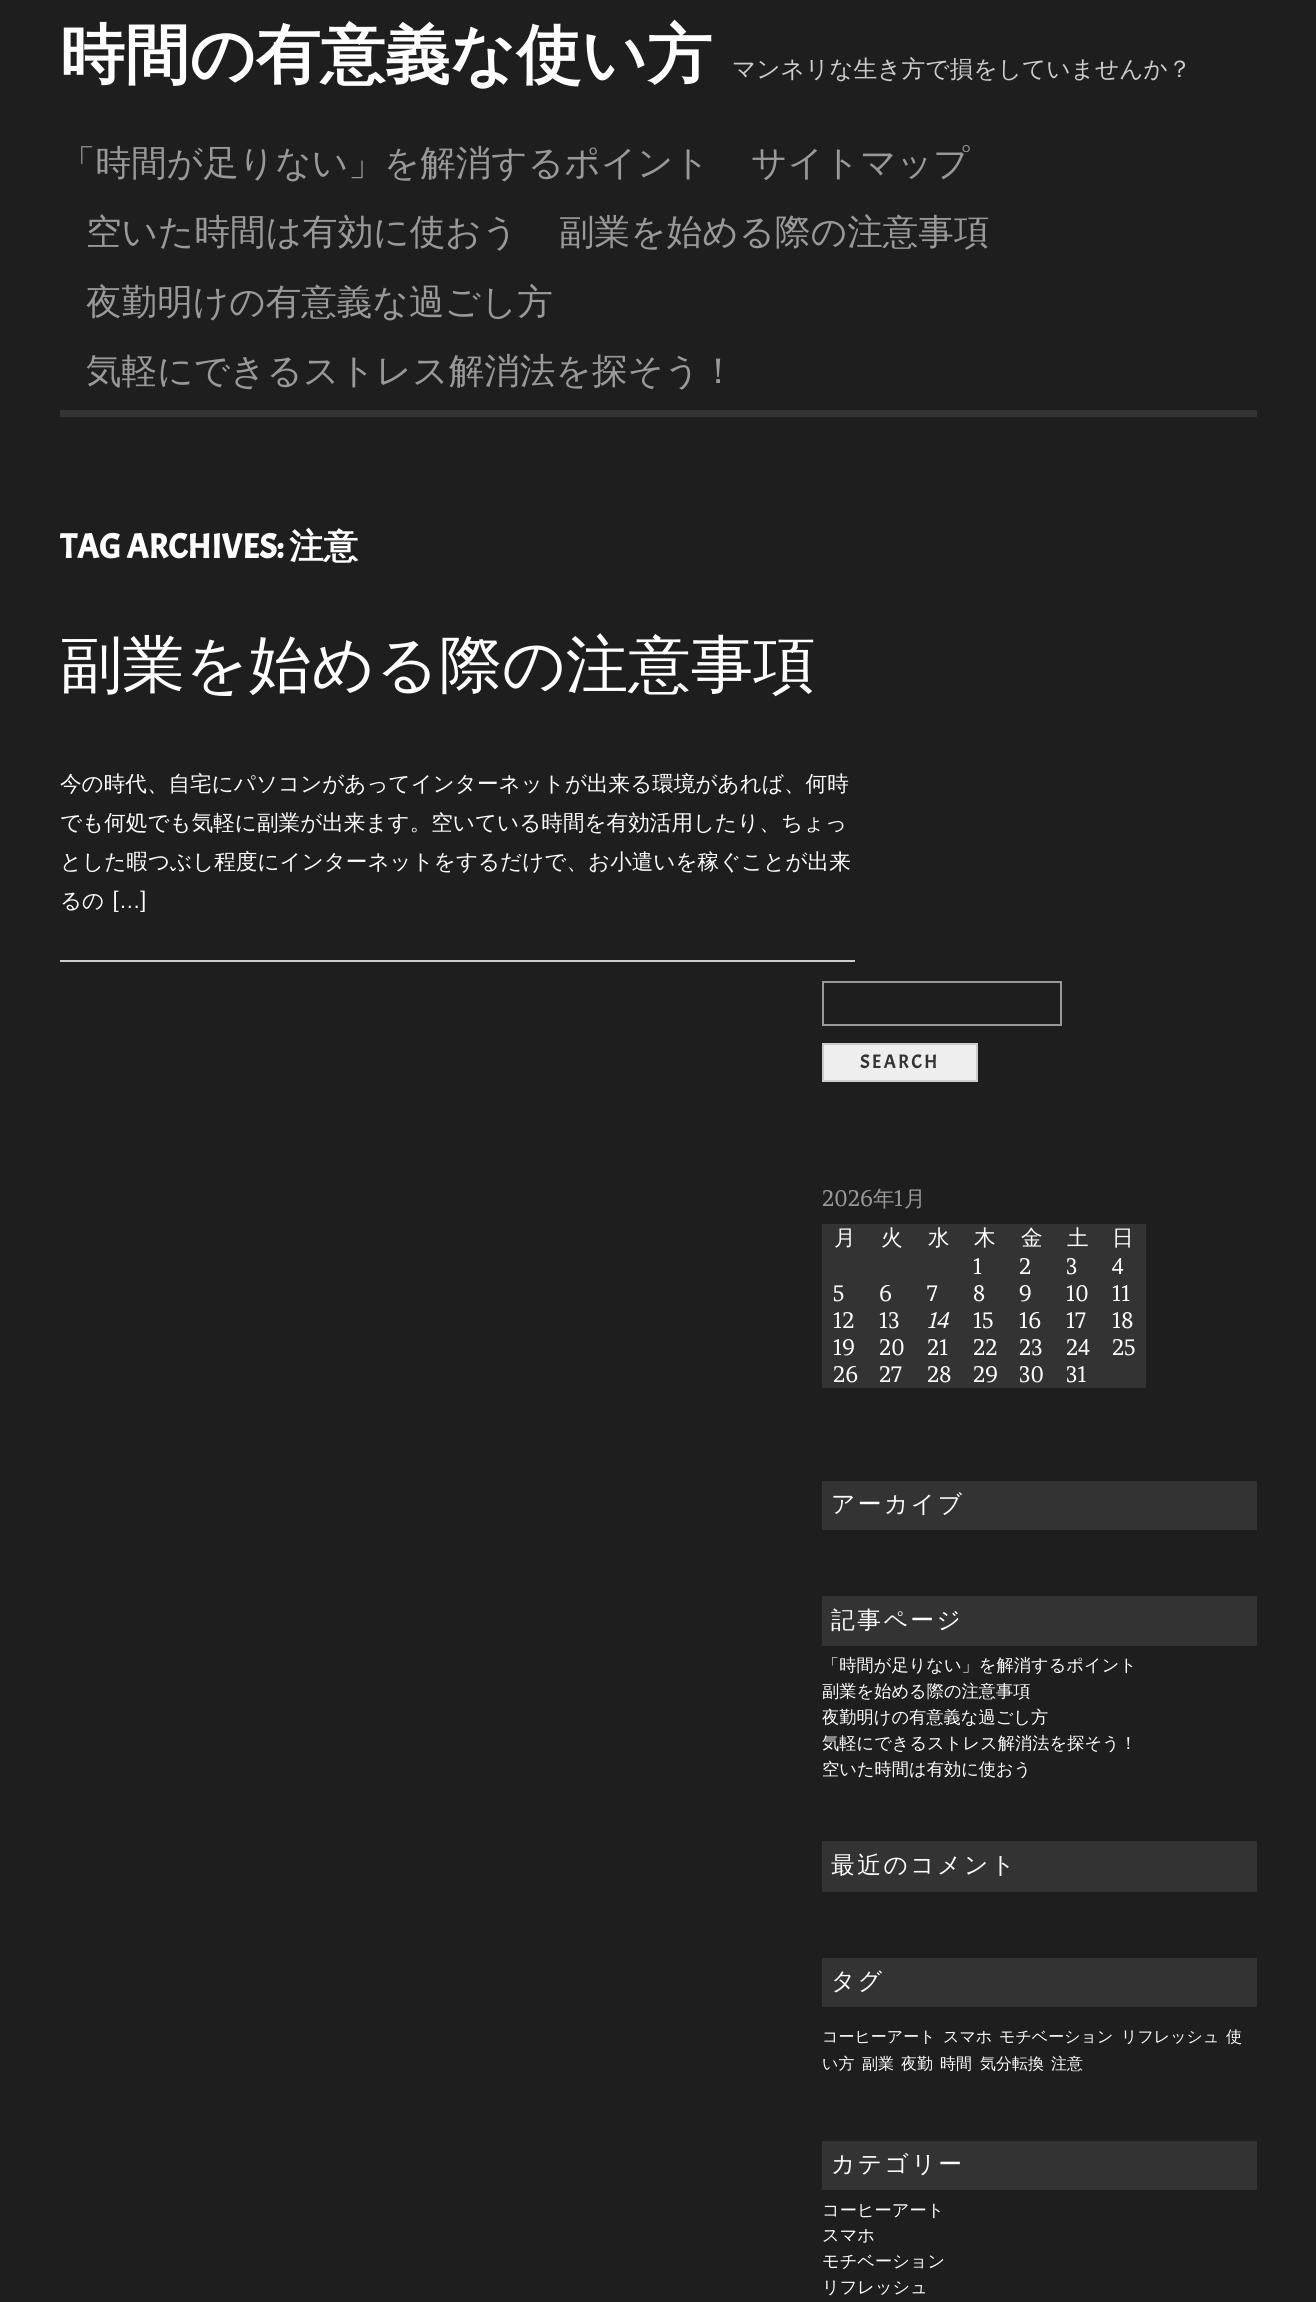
#include <cairo.h>
#include <math.h>
#include <stddef.h>

static cairo_t *c;
static void C(unsigned color){cairo_set_source_rgb(c, (color >> 16) / 255.0, (color >> 8 & 255) / 255.0, (color & 255) / 255.0);}
static void F(const char *family, double size, int italic, int bold){cairo_select_font_face(c, family, italic ? CAIRO_FONT_SLANT_ITALIC : CAIRO_FONT_SLANT_NORMAL,bold ? CAIRO_FONT_WEIGHT_BOLD : CAIRO_FONT_WEIGHT_NORMAL);cairo_set_font_size(c, size);}
static void T(double x, double y, const char *s){cairo_move_to(c, x, y);cairo_show_text(c, s);}
static void L(double x, double y, const char *s, double letter, double word){cairo_move_to(c, x, y);while (*s) {char ch[5] = {0};int n = 0;do ch[n++] = *s++; while ((*s & 0xC0) == 0x80);cairo_show_text(c, ch);cairo_rel_move_to(c, letter + word * (*ch == ' '), 0);}}
static void R(double x, double y, double w, double h){cairo_rectangle(c, x, y, w, h);cairo_fill(c);}
int main(void) {
cairo_surface_t *surface = cairo_image_surface_create(CAIRO_FORMAT_RGB24, 1316, 2302);
c = cairo_create(surface);
cairo_font_options_t *options = cairo_font_options_create();
cairo_font_options_set_hint_metrics(options, CAIRO_HINT_METRICS_OFF);
cairo_font_options_set_hint_style(options, CAIRO_HINT_STYLE_NONE);
cairo_set_font_options(c, options);
cairo_set_miter_limit(c, 4);
C(0x1e1e1e);
cairo_paint(c);
F("WenQuanYi Zen Hei",64.75,0,1);
C(0xffffff);
T(60,77,"時間の有意義な使い方");
F("WenQuanYi Zen Hei Medium",23.75,0,0);
C(0xcccccc);
T(732,77,"マンネリな生き方で損をしていませんか？");
C(0x333333);
R(60,410,1197,7);
F("WenQuanYi Zen Hei Medium",35.6,0,0);
C(0x999999);
T(60,175,"「時間が足りない」を解消するポイント");
T(751,175,"サイトマップ");
T(86,244,"空いた時間は有効に使おう");
T(559,244,"副業を始める際の注意事項");
T(86,314,"夜勤明けの有意義な過ごし方");
T(86,383,"気軽にできるストレス解消法を探そう！");
F("Acme",34.5,0,1);
C(0xffffff);
T(60,558,"TAG ARCHIVES:");
F("WenQuanYi Zen Hei",34.5,0,1);
T(289,558,"注意");
F("WenQuanYi Zen Hei Medium",62.5,0,0);
T(60,686,"副業を始める際の注意事項");
C(0xcccccc);
R(60,960,795,2);
F("WenQuanYi Zen Hei Medium",21.6,0,0);
C(0xffffff);
T(60,791,"今の時代、自宅にパソコンがあってインターネットが出来る環境があれば、何時");
T(60,830,"でも何処でも気軽に副業が出来ます。空いている時間を有効活用したり、ちょっ");
T(60,869,"とした暇つぶし程度にインターネットをするだけで、お小遣いを稼ぐことが出来");
T(60,908,"るの");
F("Amethysta",21.6,0,0);
T(112,908,"[");
F("Liberation Sans",21.6,0,0);
T(119,908,"…");
F("Amethysta",21.6,0,0);
T(140,908,"]");
cairo_rectangle(c,823,982,238,43);
C(0x999999);
cairo_stroke(c);
C(0xeeeeee);
cairo_rectangle(c,823,1044,154,37);
cairo_fill_preserve(c);
C(0xcccccc);
cairo_stroke(c);
F("Acme",19.5,0,0);
C(0x333333);
L(860,1068,"SEARCH",2,0);
F("Amethysta",21.6,0,0);
C(0x999999);
T(822,1206,"2026");
F("WenQuanYi Zen Hei Medium",21.6,0,0);
T(873,1206,"年");
F("Amethysta",21.6,0,0);
T(894,1206,"1");
F("WenQuanYi Zen Hei Medium",21.6,0,0);
T(904,1206,"月");
C(0x333333);
R(822,1224,324,29);
C(0xffffff);
T(834,1245,"月");
T(881,1245,"火");
T(928,1245,"水");
T(974,1245,"木");
T(1021,1245,"金");
T(1067,1245,"土");
T(1112,1245,"日");
C(0x333333);
R(822,1253,324,27);
F("Amethysta",21.6,0,0);
C(0xffffff);
T(973,1274,"1");
T(1019,1274,"2");
T(1066,1274,"3");
T(1112,1274,"4");
C(0x333333);
R(822,1280,324,27);
C(0xffffff);
T(833,1301,"5");
T(879,1301,"6");
T(927,1301,"7");
T(973,1301,"8");
T(1019,1301,"9");
T(1066,1301,"10");
T(1112,1301,"11");
C(0x333333);
R(822,1307,324,27);
C(0xffffff);
T(833,1328,"12");
T(879,1328,"13");
F("Amethysta",21.6,1,0);
T(927,1328,"14");
F("Amethysta",21.6,0,0);
T(973,1328,"15");
T(1019,1328,"16");
T(1066,1328,"17");
T(1112,1328,"18");
C(0x333333);
R(822,1334,324,27);
C(0xffffff);
T(833,1355,"19");
T(879,1355,"20");
T(927,1355,"21");
T(973,1355,"22");
T(1019,1355,"23");
T(1066,1355,"24");
T(1112,1355,"25");
C(0x333333);
R(822,1361,324,27);
C(0xffffff);
T(833,1382,"26");
T(879,1382,"27");
T(927,1382,"28");
T(973,1382,"29");
T(1019,1382,"30");
T(1066,1382,"31");
C(0x333333);
R(822,1481,435,49);
F("WenQuanYi Zen Hei Medium",23.75,0,0);
C(0xffffff);
L(831,1512,"アーカイブ",2.5,0);
C(0x333333);
R(822,1596,435,50);
C(0xffffff);
L(831,1628,"記事ページ",2.5,0);
F("WenQuanYi Zen Hei Medium",17.25,0,0);
T(822,1671,"「時間が足りない」を解消するポイント");
T(822,1697,"副業を始める際の注意事項");
T(822,1723,"夜勤明けの有意義な過ごし方");
T(822,1749,"気軽にできるストレス解消法を探そう！");
T(822,1775,"空いた時間は有効に使おう");
C(0x333333);
R(822,1841,435,51);
F("WenQuanYi Zen Hei Medium",23.75,0,0);
C(0xffffff);
L(831,1873,"最近のコメント",2.5,0);
C(0x333333);
R(822,1958,435,49);
C(0xffffff);
L(831,1989,"タグ",2.5,0);
F("WenQuanYi Zen Hei Medium",16,0,0);
T(822,2042,"コーヒーアート");
T(943,2042,"スマホ");
T(999,2042,"モチベーション");
T(1121,2042,"リフレッシュ");
T(1226,2042,"使");
T(822,2069,"い方");
T(862,2069,"副業");
T(901,2069,"夜勤");
T(940,2069,"時間");
T(980,2069,"気分転換");
T(1051,2069,"注意");
C(0x333333);
R(822,2141,435,49);
F("WenQuanYi Zen Hei Medium",23.75,0,0);
C(0xffffff);
L(831,2172,"カテゴリー",2.5,0);
F("WenQuanYi Zen Hei Medium",17.25,0,0);
T(822,2216,"コーヒーアート");
T(822,2241,"スマホ");
T(822,2267,"モチベーション");
T(822,2293,"リフレッシュ");
cairo_surface_write_to_png(surface, "o.png");
cairo_font_options_destroy(options);
cairo_destroy(c);
cairo_surface_destroy(surface);
return 0;
}
